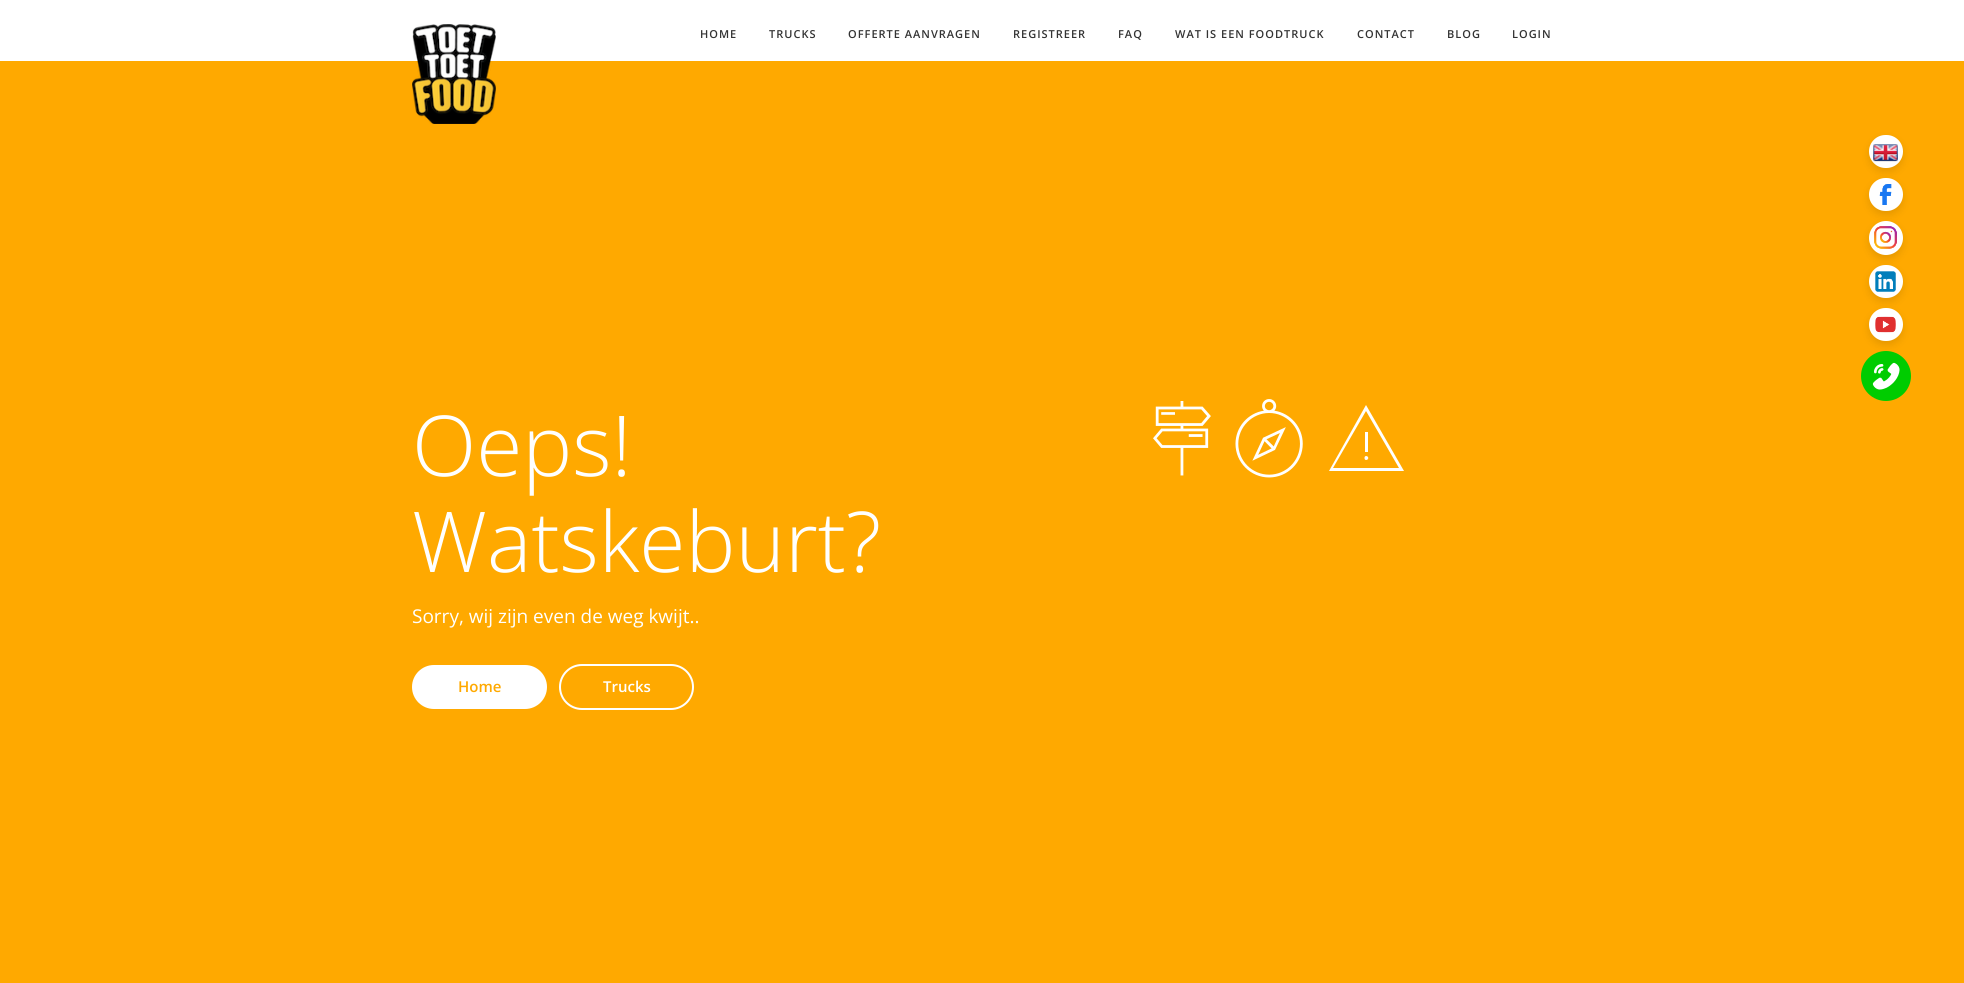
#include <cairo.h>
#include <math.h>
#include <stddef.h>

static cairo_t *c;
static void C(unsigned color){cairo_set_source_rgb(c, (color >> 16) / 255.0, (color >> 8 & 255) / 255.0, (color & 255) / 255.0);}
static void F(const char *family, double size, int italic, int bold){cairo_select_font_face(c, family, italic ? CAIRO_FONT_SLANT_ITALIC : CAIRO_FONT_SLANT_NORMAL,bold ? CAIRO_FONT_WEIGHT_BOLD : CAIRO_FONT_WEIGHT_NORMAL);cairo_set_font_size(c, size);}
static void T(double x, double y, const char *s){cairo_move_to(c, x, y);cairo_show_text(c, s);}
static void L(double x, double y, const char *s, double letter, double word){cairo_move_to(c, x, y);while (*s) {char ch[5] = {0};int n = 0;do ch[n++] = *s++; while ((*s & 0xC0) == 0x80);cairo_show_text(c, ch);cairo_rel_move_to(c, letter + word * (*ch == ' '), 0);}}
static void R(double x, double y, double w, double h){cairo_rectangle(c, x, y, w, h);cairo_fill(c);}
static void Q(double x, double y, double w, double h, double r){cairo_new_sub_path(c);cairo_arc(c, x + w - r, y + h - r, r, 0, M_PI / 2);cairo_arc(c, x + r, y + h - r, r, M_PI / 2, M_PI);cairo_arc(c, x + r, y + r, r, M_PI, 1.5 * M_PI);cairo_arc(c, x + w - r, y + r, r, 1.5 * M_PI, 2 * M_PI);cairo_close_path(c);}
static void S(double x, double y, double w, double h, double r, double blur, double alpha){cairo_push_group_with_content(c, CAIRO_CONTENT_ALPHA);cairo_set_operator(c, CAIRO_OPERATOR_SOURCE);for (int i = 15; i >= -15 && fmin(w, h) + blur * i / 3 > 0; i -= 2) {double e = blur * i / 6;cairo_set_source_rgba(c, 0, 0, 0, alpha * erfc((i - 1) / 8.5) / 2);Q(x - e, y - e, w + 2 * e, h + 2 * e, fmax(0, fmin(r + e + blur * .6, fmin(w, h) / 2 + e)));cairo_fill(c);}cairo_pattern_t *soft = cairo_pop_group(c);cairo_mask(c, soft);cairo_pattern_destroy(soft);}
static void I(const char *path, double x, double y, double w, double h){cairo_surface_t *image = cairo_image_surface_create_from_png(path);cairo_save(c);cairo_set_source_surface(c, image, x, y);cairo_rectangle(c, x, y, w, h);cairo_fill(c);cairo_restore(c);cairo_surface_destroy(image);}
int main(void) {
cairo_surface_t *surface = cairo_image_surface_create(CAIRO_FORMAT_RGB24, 1964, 983);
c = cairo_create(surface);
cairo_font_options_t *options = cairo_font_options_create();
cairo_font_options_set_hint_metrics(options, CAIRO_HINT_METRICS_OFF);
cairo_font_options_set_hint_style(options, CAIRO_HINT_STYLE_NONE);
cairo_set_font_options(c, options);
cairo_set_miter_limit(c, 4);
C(0xffa900);
cairo_paint(c);
C(0xffffff);
R(0,0,1964,61);
I("1.png",412,24,84,100);
F("Open Sans SemiBold",11,0,0);
C(0x333333);
L(700,38,"HOME",1,0);
L(769,38,"TRUCKS",1,0);
L(848,38,"OFFERTE AANVRAGEN",1,0);
L(1013,38,"REGISTREER",1,0);
L(1118,38,"FAQ",1,0);
L(1175,38,"WAT IS EEN FOODTRUCK",1,0);
L(1357,38,"CONTACT",1,0);
L(1447,38,"BLOG",1,0);
L(1512,38,"LOGIN",1,0);
C(0x000000);
S(1869,139,34,33,16.5,4,.1);
C(0xffffff);
Q(1869,135,34,33,16.5);
cairo_fill(c);
I("2.png",1873,144,25,18);
C(0x000000);
S(1869,182,34,33,16.5,4,.1);
C(0xffffff);
Q(1869,178,34,33,16.5);
cairo_fill(c);
I("3.png",1879,184,13,21);
C(0x000000);
S(1869,225,34,34,17,4,.1);
C(0xffffff);
cairo_arc(c,1886,238,17,0,2 * M_PI);
cairo_fill(c);
I("4.png",1874,226,23,23);
C(0x000000);
S(1869,269,34,33,16.5,4,.1);
C(0xffffff);
Q(1869,265,34,33,16.5);
cairo_fill(c);
I("5.png",1875,271,21,21);
C(0x000000);
S(1869,312,34,33,16.5,4,.1);
C(0xffffff);
Q(1869,308,34,33,16.5);
cairo_fill(c);
I("6.png",1875,316,21,17);
C(0x00cc00);
cairo_arc(c,1886,376,25,0,2 * M_PI);
cairo_fill(c);
I("7.png",1872,362,28,28);
F("Open Sans Light",84,0,0);
C(0xffffff);
T(412,476,"Oeps!");
T(412,572,"Watskeburt?");
F("Open Sans",19,0,0);
T(412,623,"Sorry, wij zijn even de weg kwijt..");
Q(412,665,135,44,22);
cairo_fill(c);
F("Open Sans SemiBold",15,0,0);
C(0xffa900);
T(458,692,"Home");
Q(560,665,133,44,22);
C(0xffffff);
cairo_stroke(c);
T(603,692,"Trucks");
I("8.png",1153,401,58,75);
I("9.png",1235,399,68,79);
cairo_new_path(c);
cairo_move_to(c,1366,405);
cairo_line_to(c,1329,471);
cairo_line_to(c,1404,471);
cairo_close_path(c);
cairo_move_to(c,1366,411);
cairo_line_to(c,1399,468);
cairo_line_to(c,1333,468);
cairo_close_path(c);
cairo_move_to(c,1365,432);
cairo_line_to(c,1368,432);
cairo_line_to(c,1368,452);
cairo_line_to(c,1365,452);
cairo_close_path(c);
cairo_move_to(c,1366,456);
cairo_curve_to(c,1364,456,1364,460,1366,460);
cairo_curve_to(c,1369,460,1369,456,1366,456);
cairo_close_path(c);
cairo_fill(c);
cairo_surface_write_to_png(surface, "o.png");
cairo_font_options_destroy(options);
cairo_destroy(c);
cairo_surface_destroy(surface);
return 0;
}
